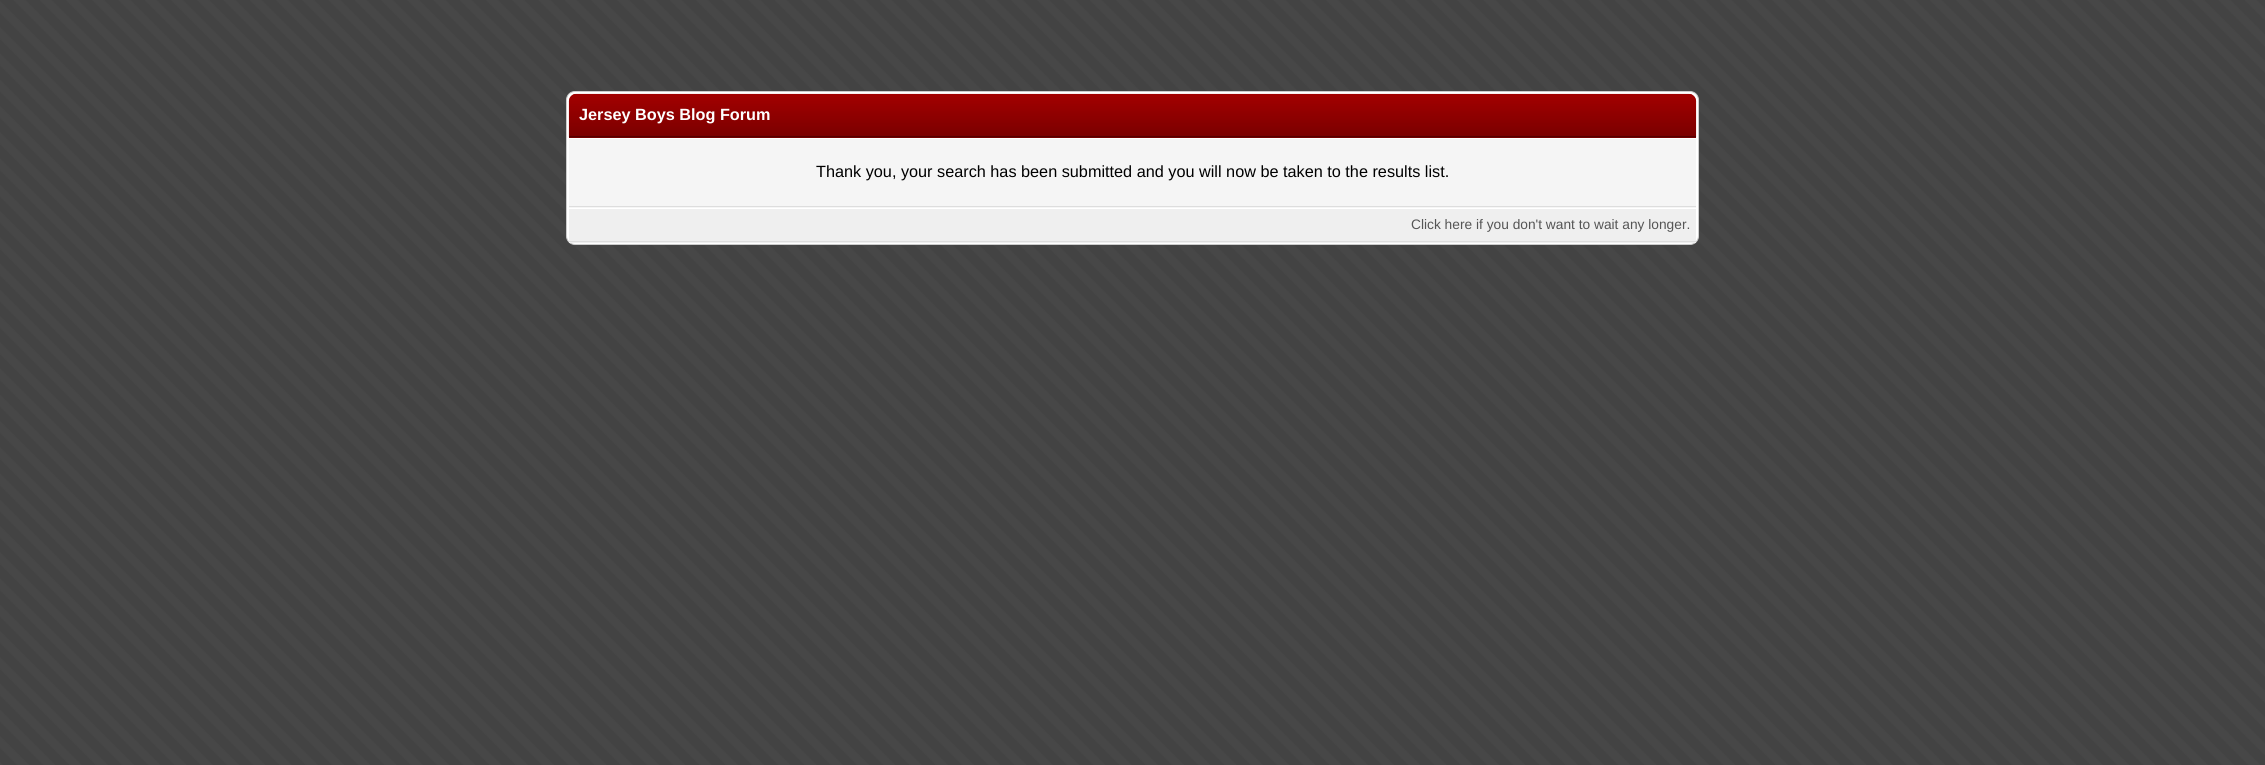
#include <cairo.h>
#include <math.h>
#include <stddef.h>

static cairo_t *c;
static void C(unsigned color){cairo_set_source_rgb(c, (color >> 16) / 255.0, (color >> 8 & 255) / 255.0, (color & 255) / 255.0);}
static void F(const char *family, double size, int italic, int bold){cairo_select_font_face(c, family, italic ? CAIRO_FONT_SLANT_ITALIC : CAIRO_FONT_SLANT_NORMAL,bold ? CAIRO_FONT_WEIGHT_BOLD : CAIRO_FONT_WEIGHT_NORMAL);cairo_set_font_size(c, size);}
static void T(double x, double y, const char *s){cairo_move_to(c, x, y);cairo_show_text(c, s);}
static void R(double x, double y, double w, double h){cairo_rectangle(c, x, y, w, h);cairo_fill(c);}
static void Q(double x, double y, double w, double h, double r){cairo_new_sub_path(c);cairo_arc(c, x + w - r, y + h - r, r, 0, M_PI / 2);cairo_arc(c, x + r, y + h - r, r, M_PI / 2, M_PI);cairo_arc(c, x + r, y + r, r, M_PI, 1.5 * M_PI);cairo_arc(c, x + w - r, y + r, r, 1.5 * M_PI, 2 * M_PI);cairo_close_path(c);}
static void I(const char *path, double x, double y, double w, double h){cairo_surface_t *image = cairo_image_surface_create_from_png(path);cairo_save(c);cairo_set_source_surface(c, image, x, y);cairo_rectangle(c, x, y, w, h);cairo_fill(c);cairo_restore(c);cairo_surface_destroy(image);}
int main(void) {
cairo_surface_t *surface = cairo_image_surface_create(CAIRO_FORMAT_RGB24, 2265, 765);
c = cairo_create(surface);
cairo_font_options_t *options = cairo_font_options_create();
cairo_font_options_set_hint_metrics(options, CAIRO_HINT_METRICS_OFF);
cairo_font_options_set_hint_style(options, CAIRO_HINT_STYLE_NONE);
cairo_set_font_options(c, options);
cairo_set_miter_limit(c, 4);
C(0xffffff);
cairo_paint(c);
I("1.png",0,0,2265,765);
C(0xffffff);
Q(566.5,91.5,1132,153,8.5);
cairo_fill_preserve(c);
C(0xcccccc);
cairo_set_line_width(c,1);
cairo_stroke(c);
C(0x750000);
cairo_new_path(c);
cairo_move_to(c,577,94);
cairo_line_to(c,1688,94);
cairo_curve_to(c,1692.5,94,1696,97.5,1696,102);
cairo_line_to(c,1696,138);
cairo_line_to(c,569,138);
cairo_line_to(c,569,102);
cairo_curve_to(c,569,97.5,572.5,94,577,94);
cairo_close_path(c);
cairo_fill(c);
I("2.png",568,93,1129,44);
C(0x550000);
R(569,136,1127,1);
F("Liberation Sans",16.25,0,1);
C(0xffffff);
T(579,120,"Jersey Boys Blog Forum");
C(0xf5f5f5);
R(569,139,1127,69);
C(0xdddddd);
R(569,206,1127,1);
F("Liberation Sans",16.25,0,0);
C(0x000000);
T(816,177,"Thank you, your search has been submitted and you will now be taken to the results list.");
C(0xefefef);
R(569,209,1127,34);
C(0xdddddd);
R(569,241,1127,1);
F("Liberation Sans",13.75,0,0);
C(0x555555);
T(1411,229,"Click here if you don't want to wait any longer.");
cairo_surface_write_to_png(surface, "o.png");
cairo_font_options_destroy(options);
cairo_destroy(c);
cairo_surface_destroy(surface);
return 0;
}
